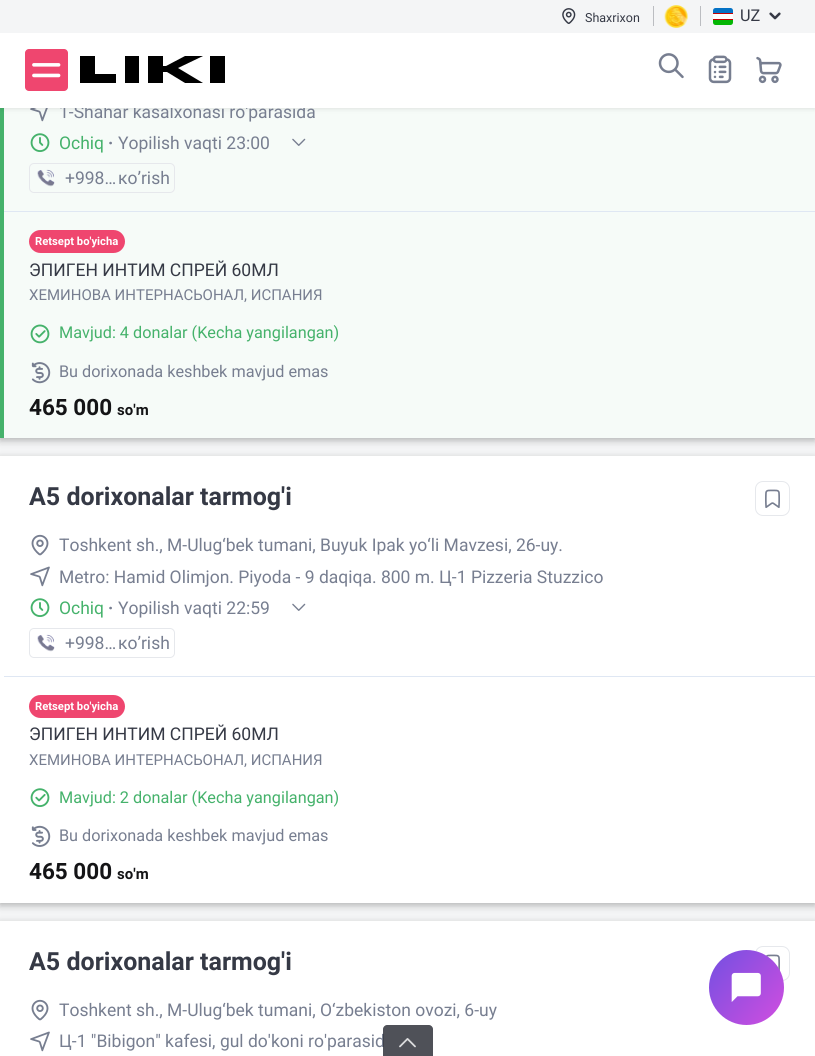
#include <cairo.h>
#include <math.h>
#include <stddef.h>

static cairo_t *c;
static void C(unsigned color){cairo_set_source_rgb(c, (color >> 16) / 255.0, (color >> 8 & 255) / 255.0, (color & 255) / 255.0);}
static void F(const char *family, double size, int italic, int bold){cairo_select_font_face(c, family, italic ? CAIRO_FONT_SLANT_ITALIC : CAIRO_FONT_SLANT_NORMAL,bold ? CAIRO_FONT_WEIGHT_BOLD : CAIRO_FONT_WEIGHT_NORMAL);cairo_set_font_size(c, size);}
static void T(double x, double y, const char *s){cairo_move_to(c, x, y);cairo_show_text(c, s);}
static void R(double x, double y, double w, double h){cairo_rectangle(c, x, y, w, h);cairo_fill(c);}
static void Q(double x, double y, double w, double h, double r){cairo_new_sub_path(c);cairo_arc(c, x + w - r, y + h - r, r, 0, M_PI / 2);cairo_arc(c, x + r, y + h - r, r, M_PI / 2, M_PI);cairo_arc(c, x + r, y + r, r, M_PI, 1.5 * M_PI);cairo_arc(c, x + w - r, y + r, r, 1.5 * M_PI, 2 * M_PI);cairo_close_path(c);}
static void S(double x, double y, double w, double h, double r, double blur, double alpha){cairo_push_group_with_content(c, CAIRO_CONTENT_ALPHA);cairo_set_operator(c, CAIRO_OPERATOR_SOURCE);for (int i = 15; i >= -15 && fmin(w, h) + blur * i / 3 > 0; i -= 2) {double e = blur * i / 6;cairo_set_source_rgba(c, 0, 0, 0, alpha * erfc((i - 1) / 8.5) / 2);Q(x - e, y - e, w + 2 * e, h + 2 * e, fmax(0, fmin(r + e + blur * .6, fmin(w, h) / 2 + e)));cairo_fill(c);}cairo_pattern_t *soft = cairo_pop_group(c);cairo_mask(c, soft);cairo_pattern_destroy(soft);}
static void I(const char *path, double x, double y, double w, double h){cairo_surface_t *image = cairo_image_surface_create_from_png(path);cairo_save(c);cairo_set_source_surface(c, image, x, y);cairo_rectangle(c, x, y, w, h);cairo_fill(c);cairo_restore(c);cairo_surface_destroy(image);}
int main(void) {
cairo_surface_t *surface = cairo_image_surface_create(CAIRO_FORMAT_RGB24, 815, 1056);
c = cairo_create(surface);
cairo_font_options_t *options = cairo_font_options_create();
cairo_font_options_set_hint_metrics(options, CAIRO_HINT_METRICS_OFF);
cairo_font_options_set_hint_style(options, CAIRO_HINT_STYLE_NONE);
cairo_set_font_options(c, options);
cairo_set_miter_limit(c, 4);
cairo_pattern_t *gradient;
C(0xf4f5f6);
cairo_paint(c);
C(0x000000);
S(0,-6,815,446,0,4,.3);
C(0xf6fbf8);
R(4,108,811,330);
C(0x45b26b);
R(0,108,4,330);
I("9.png",30,108,18,14);
C(0x000000);
S(0,1,815,108,0,2.5,.1);
F("Roboto",17.5,0,0);
C(0x777e90);
T(59,118,"1-Shahar kasalxonasi ro'parasida");
C(0xffffff);
R(0,33,815,75);
C(0xf4f5f6);
R(0,0,815,33);
I("1.png",562,8,14,16);
F("Roboto",12.5,0,0);
C(0x353945);
T(585,22,"Shaxrixon");
C(0xbbbdc1);
R(653,6,1,20);
I("2.png",664,5,24,23);
R(700,6,1,20);
I("3.png",713,8,20,17);
F("Roboto",16.25,0,0);
C(0x353945);
T(740,21,"UZ");
I("4.png",769,12,12,8);
C(0xef466f);
Q(25,49,43,42,4);
cairo_fill(c);
I("5.png",32,63,29,15);
C(0x000000);
cairo_new_path(c);
cairo_move_to(c,203,56);
cairo_line_to(c,185,56);
cairo_line_to(c,166,66);
cairo_line_to(c,163,66);
cairo_line_to(c,163,56);
cairo_line_to(c,148,56);
cairo_line_to(c,148,83);
cairo_line_to(c,163,83);
cairo_line_to(c,163,72);
cairo_line_to(c,167,72);
cairo_line_to(c,185,83);
cairo_line_to(c,203,83);
cairo_line_to(c,178,68);
cairo_close_path(c);
cairo_move_to(c,225,56);
cairo_line_to(c,210,56);
cairo_line_to(c,210,83);
cairo_line_to(c,225,83);
cairo_close_path(c);
cairo_move_to(c,139,56);
cairo_line_to(c,125,56);
cairo_line_to(c,125,83);
cairo_line_to(c,139,83);
cairo_close_path(c);
cairo_move_to(c,95,74);
cairo_line_to(c,95,56);
cairo_line_to(c,80,56);
cairo_line_to(c,80,83);
cairo_line_to(c,116,83);
cairo_line_to(c,116,74);
cairo_close_path(c);
cairo_fill(c);
I("6.png",658,53,26,26);
I("7.png",708,55,24,29);
I("8.png",756,56,26,28);
I("10.png",30,133,20,19);
F("Roboto",17.5,0,0);
C(0x45b26b);
T(59,149,"Ochiq");
F("Roboto",17.5,0,1);
C(0x777e90);
T(108,149,"·");
F("Roboto",17.5,0,0);
T(118,149,"Yopilish vaqti 23:00");
I("11.png",292,138,14,8);
Q(29.5,163.5,145,29,4.5);
C(0xe6e8ec);
cairo_set_line_width(c,1);
cairo_stroke(c);
I("12.png",37,169,18,18);
C(0x777e90);
T(65,184,"+998…");
T(118,184,"кo’rish");
C(0xdfe7f3);
R(4,211,811,1);
C(0xef466f);
Q(29,230,96,23,11.5);
cairo_fill(c);
F("Roboto",11.25,0,1);
C(0xffffff);
T(35,245,"Retsept bo'yicha");
F("Roboto",17.5,0,0);
C(0x353945);
T(29,276,"ЭПИГЕН ИНТИМ СПРЕЙ 60МЛ");
F("Roboto",15,0,0);
C(0x777e90);
T(29,300,"ХЕМИНОВА ИНТЕРНАСЬОНАЛ, ИСПАНИЯ");
I("13.png",30,324,20,20);
F("Roboto",16.25,0,0);
C(0x45b26b);
T(59,338,"Mavjud: 4 donalar (Kecha yangilangan)");
I("14.png",31,362,20,22);
C(0x777e90);
T(59,377,"Bu dorixonada keshbek mavjud emas");
F("Roboto",22.5,0,1);
C(0x141416);
T(29,415,"465 000");
F("Roboto",15,0,1);
T(117,415,"so'm");
C(0x000000);
S(0,459,815,446,0,4,.3);
C(0xffffff);
R(0,456,815,447);
F("Roboto",25,0,1);
C(0x353945);
T(29,505,"A5 dorixonalar tarmog'i");
Q(755.5,481.5,34,34,7.5);
C(0xe6e8ec);
cairo_stroke(c);
I("15.png",765,489,15,19);
I("16.png",31,534,18,22);
F("Roboto",17.5,0,0);
C(0x777e90);
T(59,551,"Toshkent sh., M-Ulug‘bek tumani, Buyuk Ipak yo‘li Mavzesi, 26-uy.");
I("17.png",30,566,20,21);
T(59,583,"Metro: Hamid Olimjon. Piyoda - 9 daqiqa. 800 m. Ц-1 Pizzeria Stuzzico");
I("18.png",30,598,20,19);
C(0x45b26b);
T(59,614,"Ochiq");
F("Roboto",17.5,0,1);
C(0x777e90);
T(108,614,"·");
F("Roboto",17.5,0,0);
T(118,614,"Yopilish vaqti 22:59");
I("19.png",292,603,14,8);
Q(29.5,628.5,145,29,4.5);
C(0xe6e8ec);
cairo_stroke(c);
I("20.png",37,634,18,18);
C(0x777e90);
T(65,649,"+998…");
T(118,649,"кo’rish");
C(0xdfe7f3);
R(4,676,811,1);
C(0xef466f);
Q(29,695,96,23,11.5);
cairo_fill(c);
F("Roboto",11.25,0,1);
C(0xffffff);
T(35,710,"Retsept bo'yicha");
F("Roboto",17.5,0,0);
C(0x353945);
T(29,740,"ЭПИГЕН ИНТИМ СПРЕЙ 60МЛ");
F("Roboto",15,0,0);
C(0x777e90);
T(29,765,"ХЕМИНОВА ИНТЕРНАСЬОНАЛ, ИСПАНИЯ");
I("21.png",30,788,20,19);
F("Roboto",16.25,0,0);
C(0x45b26b);
T(59,803,"Mavjud: 2 donalar (Kecha yangilangan)");
I("22.png",31,825,20,22);
C(0x777e90);
T(59,841,"Bu dorixonada keshbek mavjud emas");
F("Roboto",22.5,0,1);
C(0x141416);
T(29,879,"465 000");
F("Roboto",15,0,1);
T(117,879,"so'm");
C(0x000000);
S(0,924,815,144,0,4,.3);
C(0xffffff);
R(0,921,815,135);
F("Roboto",25,0,1);
C(0x353945);
T(29,970,"A5 dorixonalar tarmog'i");
Q(755.5,946.5,34,34,7.5);
C(0xe6e8ec);
cairo_stroke(c);
I("23.png",765,954,15,17);
I("16.png",31,999,18,22);
F("Roboto",17.5,0,0);
C(0x777e90);
T(59,1016,"Toshkent sh., M-Ulug‘bek tumani, O‘zbekiston ovozi, 6-uy");
I("17.png",30,1031,20,21);
T(59,1047,"Ц-1 \"Bibigon\" kafesi, gul do'koni ro'parasid");
cairo_set_source_rgba(c,0.137,0.149,0.184,0.8);
cairo_new_path(c);
cairo_move_to(c,387,1025);
cairo_line_to(c,429,1025);
cairo_curve_to(c,431,1025,433,1027,433,1029);
cairo_line_to(c,433,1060);
cairo_line_to(c,383,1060);
cairo_line_to(c,383,1029);
cairo_curve_to(c,383,1027,385,1025,387,1025);
cairo_close_path(c);
cairo_fill(c);
I("24.png",399,1038,17,10);
gradient = cairo_pattern_create_linear(706,954,787,1021);
cairo_pattern_add_color_stop_rgba(gradient,0,0.451,0.31,0.882,1);
cairo_pattern_add_color_stop_rgba(gradient,1,0.82,0.306,0.878,1);
cairo_set_source(c,gradient);
cairo_pattern_destroy(gradient);
cairo_arc(c,746.5,987.5,37.5,0,2 * M_PI);
cairo_fill(c);
I("25.png",731,972,30,30);
cairo_surface_write_to_png(surface, "o.png");
cairo_font_options_destroy(options);
cairo_destroy(c);
cairo_surface_destroy(surface);
return 0;
}
